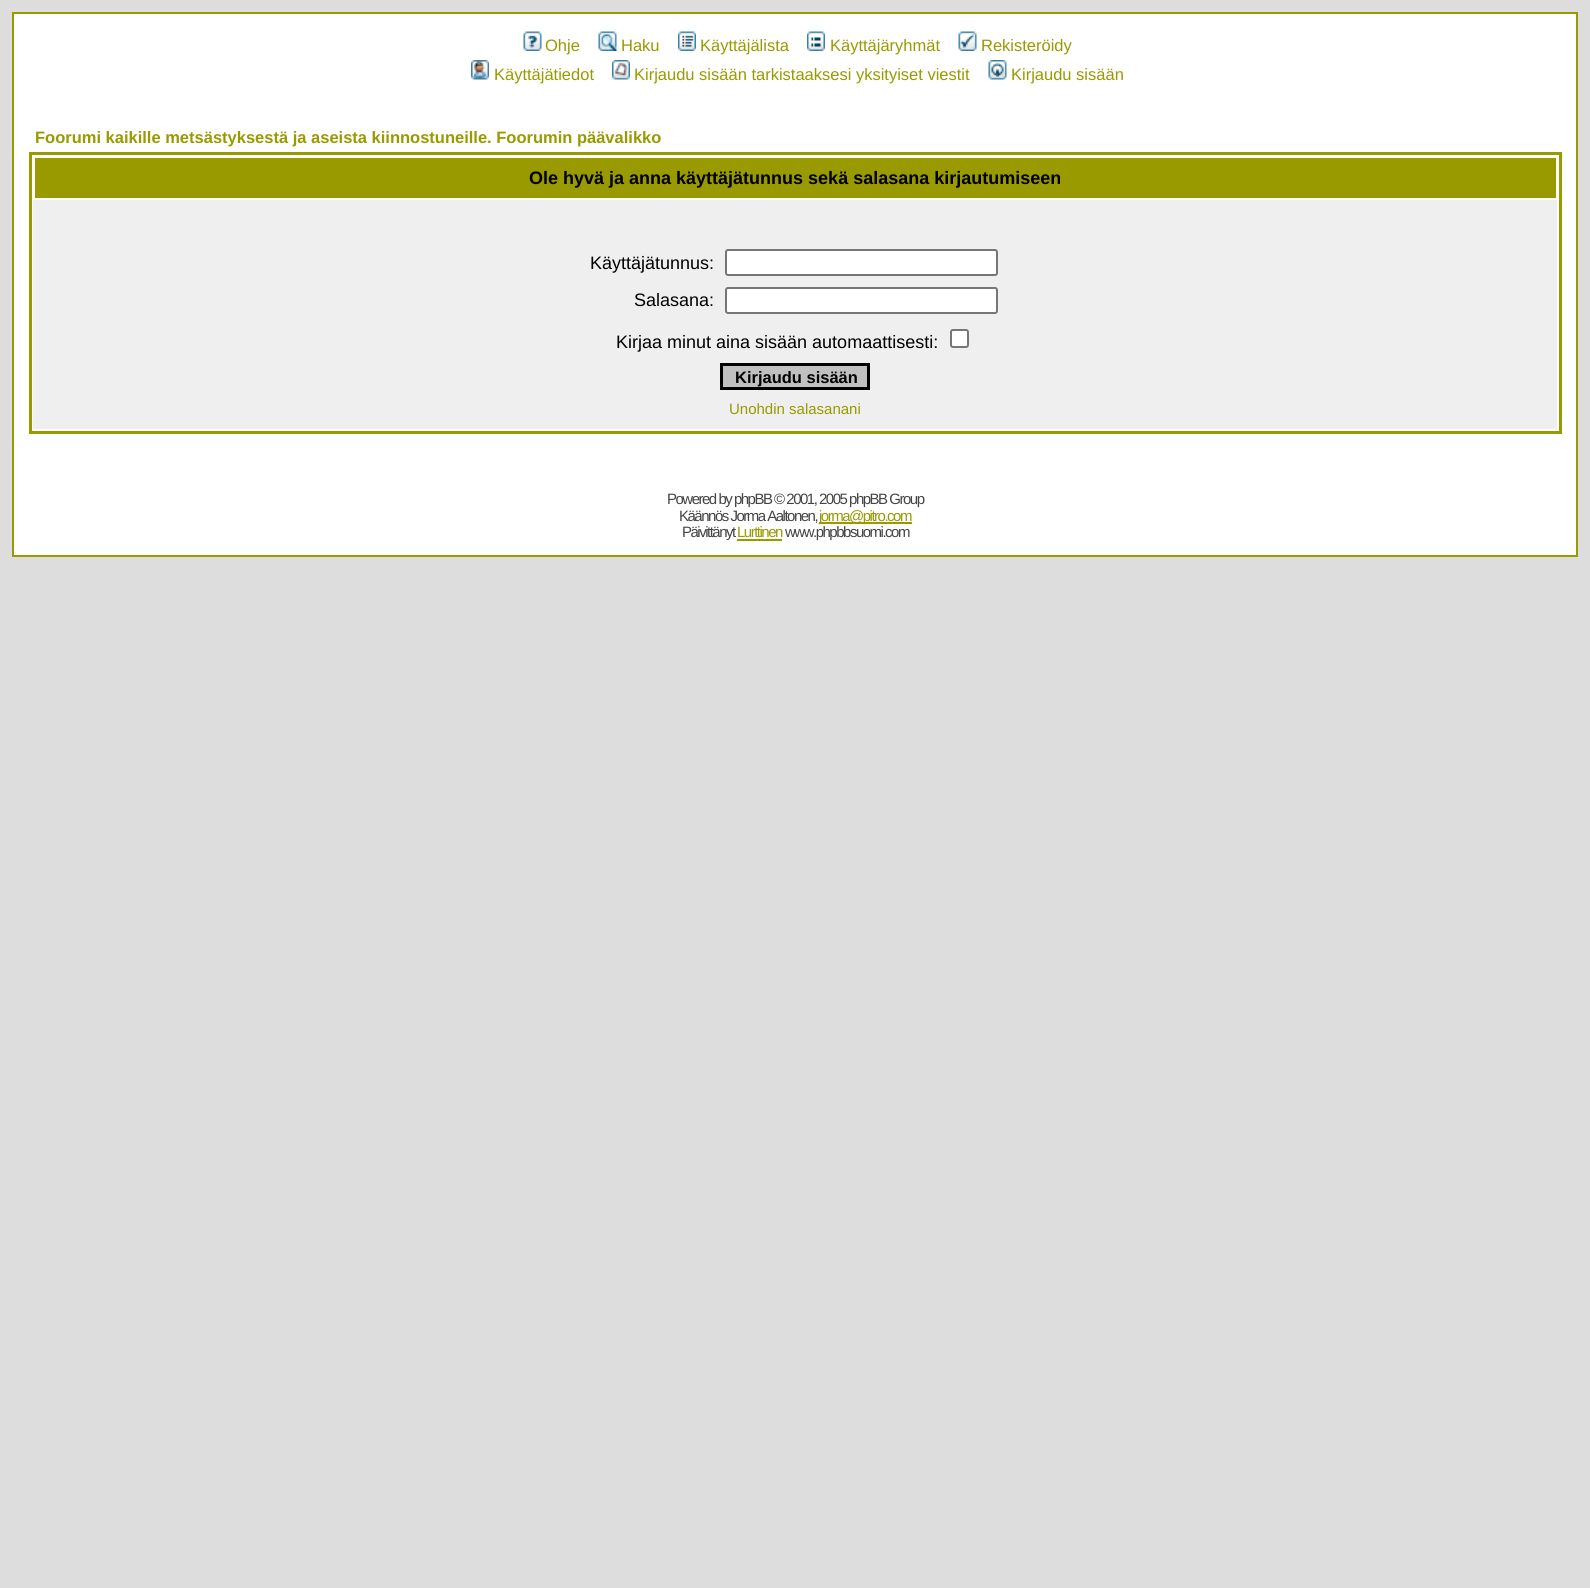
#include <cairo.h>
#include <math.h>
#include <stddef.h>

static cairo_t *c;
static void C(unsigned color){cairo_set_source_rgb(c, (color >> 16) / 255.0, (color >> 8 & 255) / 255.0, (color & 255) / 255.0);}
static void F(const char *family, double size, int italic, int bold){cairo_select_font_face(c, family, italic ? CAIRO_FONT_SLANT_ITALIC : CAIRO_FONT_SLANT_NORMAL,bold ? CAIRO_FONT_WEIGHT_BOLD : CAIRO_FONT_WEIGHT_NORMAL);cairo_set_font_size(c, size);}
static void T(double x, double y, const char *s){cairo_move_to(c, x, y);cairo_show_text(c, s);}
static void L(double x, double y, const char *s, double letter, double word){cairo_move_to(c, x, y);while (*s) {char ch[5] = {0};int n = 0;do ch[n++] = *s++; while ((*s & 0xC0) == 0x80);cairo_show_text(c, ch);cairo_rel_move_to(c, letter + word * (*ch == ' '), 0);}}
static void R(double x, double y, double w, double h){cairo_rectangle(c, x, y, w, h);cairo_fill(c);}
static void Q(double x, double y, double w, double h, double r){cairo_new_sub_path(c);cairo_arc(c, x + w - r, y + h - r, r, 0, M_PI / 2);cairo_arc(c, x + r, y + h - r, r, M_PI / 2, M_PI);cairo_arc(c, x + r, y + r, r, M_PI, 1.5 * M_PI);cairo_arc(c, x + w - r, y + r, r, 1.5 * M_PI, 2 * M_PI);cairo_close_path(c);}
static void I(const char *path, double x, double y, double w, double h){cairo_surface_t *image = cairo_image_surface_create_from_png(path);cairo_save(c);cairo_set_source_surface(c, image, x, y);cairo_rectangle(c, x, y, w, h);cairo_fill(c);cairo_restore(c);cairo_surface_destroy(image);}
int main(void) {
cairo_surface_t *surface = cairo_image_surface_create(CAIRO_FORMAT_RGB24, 1590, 1588);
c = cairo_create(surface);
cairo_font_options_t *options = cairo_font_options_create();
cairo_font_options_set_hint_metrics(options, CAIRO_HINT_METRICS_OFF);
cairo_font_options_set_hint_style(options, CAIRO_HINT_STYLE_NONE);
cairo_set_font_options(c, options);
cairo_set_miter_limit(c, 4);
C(0xdddddd);
cairo_paint(c);
C(0xffffff);
cairo_rectangle(c,13,13,1564,543);
cairo_fill_preserve(c);
C(0x999900);
cairo_stroke(c);
I("1.png",523,31,19,20);
F("Liberation Sans",16.5,0,0);
T(545,51,"Ohje");
I("2.png",598,31,19,20);
T(621,51,"Haku");
I("3.png",678,31,18,20);
T(700,51,"Käyttäjälista");
I("4.png",807,31,18,20);
T(830,51,"Käyttäjäryhmät");
I("5.png",958,31,19,20);
T(981,51,"Rekisteröidy");
I("6.png",471,60,18,20);
T(494,80,"Käyttäjätiedot");
I("7.png",612,60,18,20);
T(634,80,"Kirjaudu sisään tarkistaaksesi yksityiset viestit");
I("8.png",988,60,19,20);
T(1011,80,"Kirjaudu sisään");
F("Liberation Sans",16.5,0,1);
T(35,143,"Foorumi kaikille metsästyksestä ja aseista kiinnostuneille. Foorumin päävalikko");
cairo_rectangle(c,30.5,153.5,1530,279);
cairo_set_line_width(c,3);
cairo_stroke(c);
R(35,158,1521,40);
F("Liberation Sans",18,0,1);
C(0x000000);
T(529,184,"Ole hyvä ja anna käyttäjätunnus sekä salasana kirjautumiseen");
C(0xefefef);
R(33,200,1524,229);
F("Liberation Sans",18,0,0);
C(0x000000);
T(590,269,"Käyttäjätunnus:");
C(0xffffff);
Q(726,250,271,25,2);
cairo_fill_preserve(c);
C(0x767676);
cairo_set_line_width(c,2);
cairo_stroke(c);
C(0x000000);
T(634,306,"Salasana:");
C(0xffffff);
Q(726,288,271,25,2);
cairo_fill_preserve(c);
C(0x767676);
cairo_stroke(c);
C(0x000000);
T(616,348,"Kirjaa minut aina sisään automaattisesti:");
C(0xffffff);
Q(951,330,17,17,2);
cairo_fill_preserve(c);
C(0x767676);
cairo_stroke(c);
C(0xc0c0c0);
cairo_rectangle(c,721.5,364.5,147,24);
cairo_fill_preserve(c);
C(0x000000);
cairo_set_line_width(c,3);
cairo_stroke(c);
F("Liberation Sans",16.5,0,1);
T(735,383,"Kirjaudu sisään");
F("Liberation Sans",15,0,0);
C(0x999900);
T(729,414,"Unohdin salasanani");
C(0x444444);
L(667,504,"Powered by phpBB © 2001, 2005 phpBB Group",-1.5,0);
L(679,521,"Käännös Jorma Aaltonen,",-1.5,0);
C(0x999900);
R(819,522,93,2);
L(819,521,"jorma@pitro.com",-1.5,0);
C(0x444444);
L(682,537,"Päivittänyt",-1.5,0);
C(0x999900);
R(737,539,45,2);
L(737,537,"Lurttinen",-1.5,0);
C(0x444444);
L(785,537,"www.phpbbsuomi.com",-1.5,0);
cairo_surface_write_to_png(surface, "o.png");
cairo_font_options_destroy(options);
cairo_destroy(c);
cairo_surface_destroy(surface);
return 0;
}
